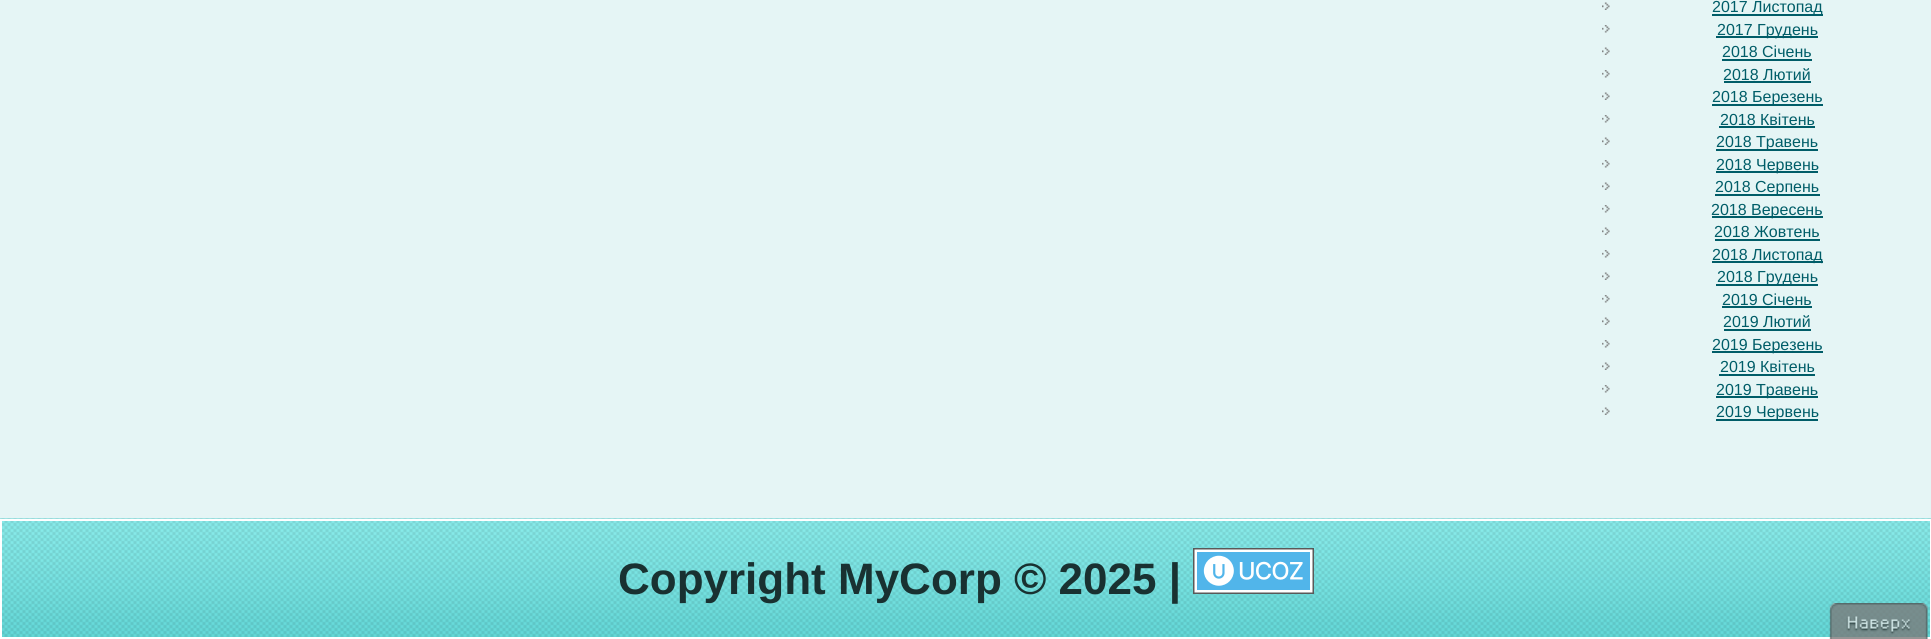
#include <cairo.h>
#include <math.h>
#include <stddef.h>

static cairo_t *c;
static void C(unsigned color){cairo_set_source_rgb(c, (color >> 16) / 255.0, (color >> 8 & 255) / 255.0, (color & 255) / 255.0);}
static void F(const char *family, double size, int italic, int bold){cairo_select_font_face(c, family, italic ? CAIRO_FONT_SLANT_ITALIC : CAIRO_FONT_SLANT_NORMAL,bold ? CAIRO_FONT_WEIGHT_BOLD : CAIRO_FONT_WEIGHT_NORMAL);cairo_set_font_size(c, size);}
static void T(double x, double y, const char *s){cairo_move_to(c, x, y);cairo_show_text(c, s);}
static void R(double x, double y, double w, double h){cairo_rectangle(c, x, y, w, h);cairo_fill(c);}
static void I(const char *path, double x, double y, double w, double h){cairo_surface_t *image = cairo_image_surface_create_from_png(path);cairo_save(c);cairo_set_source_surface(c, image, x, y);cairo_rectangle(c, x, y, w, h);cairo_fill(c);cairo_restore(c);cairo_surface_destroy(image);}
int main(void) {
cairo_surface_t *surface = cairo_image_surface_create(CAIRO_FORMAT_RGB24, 1931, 639);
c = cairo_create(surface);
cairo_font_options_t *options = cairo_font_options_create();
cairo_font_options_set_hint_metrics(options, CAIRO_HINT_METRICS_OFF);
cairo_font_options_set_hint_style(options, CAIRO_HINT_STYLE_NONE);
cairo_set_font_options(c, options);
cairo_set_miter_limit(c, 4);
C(0xe5f5f5);
cairo_paint(c);
I("1.png",1602,2,8,8);
C(0x005d68);
R(1712,14,111,2);
F("Liberation Sans",16,0,0);
T(1712,12,"2017 Листопад");
I("2.png",1602,25,8,8);
R(1716,36,102,2);
T(1717,35,"2017 Грудень");
I("1.png",1602,47,8,8);
T(1722,57,"2018 Січень");
R(1722,59,90,2);
I("2.png",1602,70,8,8);
T(1723,80,"2018 Лютий");
R(1724,81,87,2);
I("1.png",1602,92,8,8);
R(1712,104,111,2);
T(1712,102,"2018 Березень");
I("2.png",1602,115,8,8);
T(1720,125,"2018 Квітень");
R(1719,126,96,2);
I("1.png",1602,137,8,8);
R(1716,149,102,2);
T(1716,147,"2018 Травень");
I("2.png",1602,160,8,8);
R(1716,171,102,2);
T(1716,170,"2018 Червень");
I("1.png",1602,182,8,8);
R(1715,194,105,2);
T(1715,192,"2018 Серпень");
I("2.png",1602,205,8,8);
R(1712,216,111,2);
T(1711,215,"2018 Вересень");
I("1.png",1602,227,8,8);
T(1714,237,"2018 Жовтень");
R(1715,239,105,2);
I("2.png",1602,250,8,8);
R(1712,261,111,2);
T(1712,260,"2018 Листопад");
I("1.png",1602,272,8,8);
R(1716,284,102,2);
T(1717,282,"2018 Грудень");
I("2.png",1602,295,8,8);
T(1722,305,"2019 Січень");
R(1722,306,90,2);
I("1.png",1602,317,8,8);
T(1723,327,"2019 Лютий");
R(1724,329,87,2);
I("2.png",1602,340,8,8);
R(1712,351,111,2);
T(1712,350,"2019 Березень");
I("1.png",1602,362,8,8);
T(1720,372,"2019 Квітень");
R(1719,374,96,2);
I("2.png",1602,385,8,8);
R(1716,396,102,2);
T(1716,395,"2019 Травень");
I("1.png",1602,407,8,8);
R(1716,419,102,2);
T(1716,417,"2019 Червень");
I("3.png",0,518,1931,119);
cairo_rectangle(c,1,520,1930,118);
C(0xffffff);
cairo_stroke(c);
F("Liberation Sans",44,0,1);
C(0x193131);
T(618,594,"Copyright MyCorp © 2025 |");
I("4.png",1193,548,121,46);
I("5.png",1829,603,99,36);
cairo_surface_write_to_png(surface, "o.png");
cairo_font_options_destroy(options);
cairo_destroy(c);
cairo_surface_destroy(surface);
return 0;
}
